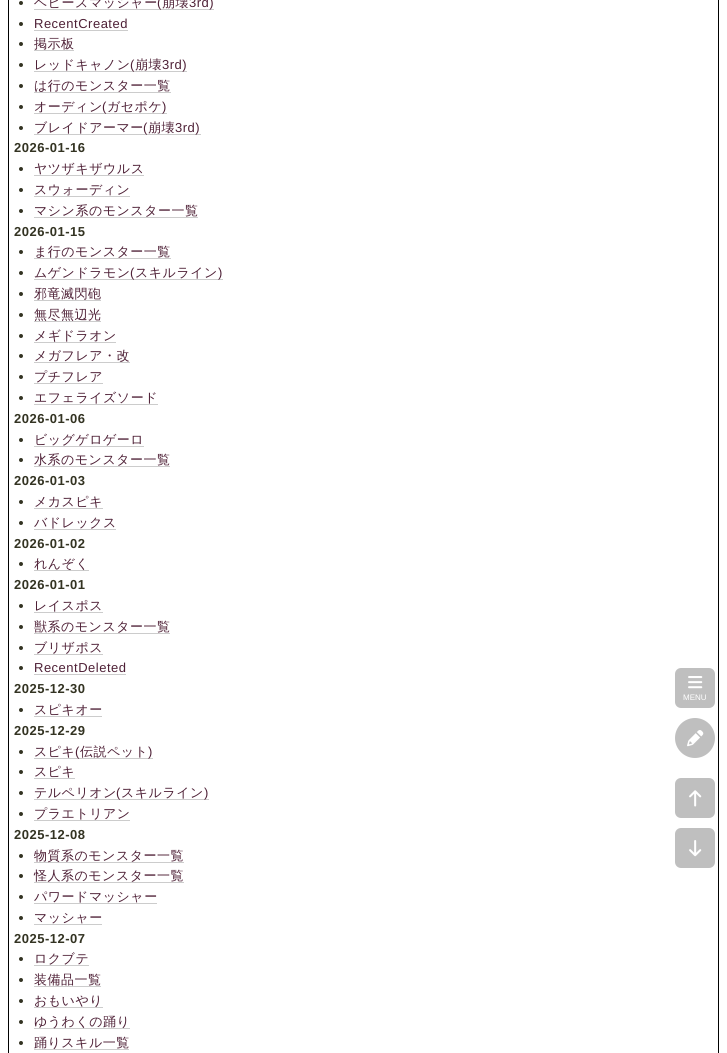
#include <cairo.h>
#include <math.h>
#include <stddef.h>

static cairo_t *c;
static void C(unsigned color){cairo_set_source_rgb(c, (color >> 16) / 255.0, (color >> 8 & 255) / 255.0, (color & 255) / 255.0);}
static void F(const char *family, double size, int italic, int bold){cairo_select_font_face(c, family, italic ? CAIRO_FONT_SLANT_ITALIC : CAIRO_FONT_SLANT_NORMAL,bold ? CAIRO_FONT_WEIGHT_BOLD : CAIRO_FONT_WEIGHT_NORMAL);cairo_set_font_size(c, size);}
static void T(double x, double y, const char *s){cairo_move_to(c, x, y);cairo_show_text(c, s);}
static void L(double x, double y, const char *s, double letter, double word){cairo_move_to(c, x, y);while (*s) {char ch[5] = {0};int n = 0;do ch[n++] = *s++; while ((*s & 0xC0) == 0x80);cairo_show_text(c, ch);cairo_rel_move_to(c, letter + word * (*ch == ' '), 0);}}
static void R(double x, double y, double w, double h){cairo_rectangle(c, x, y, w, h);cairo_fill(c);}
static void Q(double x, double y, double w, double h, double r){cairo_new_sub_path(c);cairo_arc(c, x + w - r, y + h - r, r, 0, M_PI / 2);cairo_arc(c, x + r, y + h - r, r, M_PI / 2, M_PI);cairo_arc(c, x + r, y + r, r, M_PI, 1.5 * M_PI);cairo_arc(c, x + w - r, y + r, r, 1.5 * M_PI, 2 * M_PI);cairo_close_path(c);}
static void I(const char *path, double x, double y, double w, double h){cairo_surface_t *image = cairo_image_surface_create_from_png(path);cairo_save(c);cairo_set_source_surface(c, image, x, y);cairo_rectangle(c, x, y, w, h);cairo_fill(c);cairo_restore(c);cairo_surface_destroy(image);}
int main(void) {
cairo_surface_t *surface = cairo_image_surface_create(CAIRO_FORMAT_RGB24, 727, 1053);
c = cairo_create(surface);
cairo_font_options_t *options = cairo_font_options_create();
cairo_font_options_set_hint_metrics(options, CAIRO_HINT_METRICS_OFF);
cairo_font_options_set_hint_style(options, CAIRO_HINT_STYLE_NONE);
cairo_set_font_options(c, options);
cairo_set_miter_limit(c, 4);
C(0xffffff);
cairo_paint(c);
cairo_rectangle(c,8.5,-.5,710,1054);
C(0x000000);
cairo_set_line_width(c,1);
cairo_stroke(c);
C(0x333322);
cairo_arc(c,21,3,2,0,2 * M_PI);
cairo_fill(c);
F("WenQuanYi Zen Hei Medium",13,0,0);
C(0x4e2036);
L(34,7,"ヘビースマッシャー",.5,0);
C(0xcccccc);
R(34,9,180,1);
F("Liberation Sans",13,0,0);
C(0x4e2036);
L(157,7,"(",.5,0);
F("WenQuanYi Zen Hei Medium",13,0,0);
L(162,7,"崩壊",.5,0);
F("Liberation Sans",13,0,0);
L(189,7,"3rd)",.5,0);
C(0x333322);
cairo_new_path(c);
cairo_arc(c,21,24,2,0,2 * M_PI);
cairo_fill(c);
C(0x4e2036);
L(34,28,"RecentCreated",.5,0);
C(0xcccccc);
R(34,30,94,1);
C(0x333322);
cairo_new_path(c);
cairo_arc(c,21,44,2,0,2 * M_PI);
cairo_fill(c);
F("WenQuanYi Zen Hei Medium",13,0,0);
C(0x4e2036);
L(34,48,"掲示板",.5,0);
C(0xcccccc);
R(34,50,40,1);
C(0x333322);
cairo_new_path(c);
cairo_arc(c,21,65,2,0,2 * M_PI);
cairo_fill(c);
C(0x4e2036);
L(34,69,"レッドキャノン",.5,0);
C(0xcccccc);
R(34,71,153,1);
F("Liberation Sans",13,0,0);
C(0x4e2036);
L(130,69,"(",.5,0);
F("WenQuanYi Zen Hei Medium",13,0,0);
L(135,69,"崩壊",.5,0);
F("Liberation Sans",13,0,0);
L(162,69,"3rd)",.5,0);
C(0x333322);
cairo_new_path(c);
cairo_arc(c,21,86,2,0,2 * M_PI);
cairo_fill(c);
F("WenQuanYi Zen Hei Medium",13,0,0);
C(0x4e2036);
L(34,90,"は行のモンスター一覧",.5,0);
C(0xcccccc);
R(34,92,137,1);
C(0x333322);
cairo_new_path(c);
cairo_arc(c,21,107,2,0,2 * M_PI);
cairo_fill(c);
C(0x4e2036);
L(34,111,"オーディン",.5,0);
C(0xcccccc);
R(34,113,133,1);
F("Liberation Sans",13,0,0);
C(0x4e2036);
L(102,111,"(",.5,0);
F("WenQuanYi Zen Hei Medium",13,0,0);
L(107,111,"ガセポケ",.5,0);
F("Liberation Sans",13,0,0);
L(162,111,")",.5,0);
C(0x333322);
cairo_new_path(c);
cairo_arc(c,21,128,2,0,2 * M_PI);
cairo_fill(c);
F("WenQuanYi Zen Hei Medium",13,0,0);
C(0x4e2036);
L(34,132,"ブレイドアーマー",.5,0);
C(0xcccccc);
R(34,134,167,1);
F("Liberation Sans",13,0,0);
C(0x4e2036);
L(143,132,"(",.5,0);
F("WenQuanYi Zen Hei Medium",13,0,0);
L(148,132,"崩壊",.5,0);
F("Liberation Sans",13,0,0);
L(175,132,"3rd)",.5,0);
F("Liberation Sans",13,0,1);
C(0x333322);
L(14,152,"2026-01-16",.5,0);
cairo_new_path(c);
cairo_arc(c,21,169,2,0,2 * M_PI);
cairo_fill(c);
F("WenQuanYi Zen Hei Medium",13,0,0);
C(0x4e2036);
L(34,173,"ヤツザキザウルス",.5,0);
C(0xcccccc);
R(34,175,110,1);
C(0x333322);
cairo_new_path(c);
cairo_arc(c,21,190,2,0,2 * M_PI);
cairo_fill(c);
C(0x4e2036);
L(34,194,"スウォーディン",.5,0);
C(0xcccccc);
R(34,196,96,1);
C(0x333322);
cairo_new_path(c);
cairo_arc(c,21,211,2,0,2 * M_PI);
cairo_fill(c);
C(0x4e2036);
L(34,215,"マシン系のモンスター一覧",.5,0);
C(0xcccccc);
R(34,217,164,1);
F("Liberation Sans",13,0,1);
C(0x333322);
L(14,236,"2026-01-15",.5,0);
cairo_new_path(c);
cairo_arc(c,21,252,2,0,2 * M_PI);
cairo_fill(c);
F("WenQuanYi Zen Hei Medium",13,0,0);
C(0x4e2036);
L(34,256,"ま行のモンスター一覧",.5,0);
C(0xcccccc);
R(34,258,137,1);
C(0x333322);
cairo_new_path(c);
cairo_arc(c,21,273,2,0,2 * M_PI);
cairo_fill(c);
C(0x4e2036);
L(34,277,"ムゲンドラモン",.5,0);
C(0xcccccc);
R(34,279,189,1);
F("Liberation Sans",13,0,0);
C(0x4e2036);
L(130,277,"(",.5,0);
F("WenQuanYi Zen Hei Medium",13,0,0);
L(135,277,"スキルライン",.5,0);
F("Liberation Sans",13,0,0);
L(218,277,")",.5,0);
C(0x333322);
cairo_new_path(c);
cairo_arc(c,21,294,2,0,2 * M_PI);
cairo_fill(c);
F("WenQuanYi Zen Hei Medium",13,0,0);
C(0x4e2036);
L(34,298,"邪竜滅閃砲",.5,0);
C(0xcccccc);
R(34,300,67,1);
C(0x333322);
cairo_new_path(c);
cairo_arc(c,21,315,2,0,2 * M_PI);
cairo_fill(c);
C(0xcccccc);
R(34,321,67,1);
C(0x4e2036);
L(34,319,"無尽無辺光",.5,0);
C(0x333322);
cairo_new_path(c);
cairo_arc(c,21,336,2,0,2 * M_PI);
cairo_fill(c);
C(0x4e2036);
L(34,340,"メギドラオン",.5,0);
C(0xcccccc);
R(34,342,82,1);
C(0x333322);
cairo_new_path(c);
cairo_arc(c,21,356,2,0,2 * M_PI);
cairo_fill(c);
C(0x4e2036);
L(34,360,"メガフレア・改",.5,0);
C(0xcccccc);
R(34,362,96,1);
C(0x333322);
cairo_new_path(c);
cairo_arc(c,21,377,2,0,2 * M_PI);
cairo_fill(c);
C(0x4e2036);
L(34,381,"プチフレア",.5,0);
C(0xcccccc);
R(34,383,69,1);
C(0x333322);
cairo_new_path(c);
cairo_arc(c,21,398,2,0,2 * M_PI);
cairo_fill(c);
C(0x4e2036);
L(34,402,"エフェライズソード",.5,0);
C(0xcccccc);
R(34,404,124,1);
F("Liberation Sans",13,0,1);
C(0x333322);
L(14,423,"2026-01-06",.5,0);
cairo_new_path(c);
cairo_arc(c,21,440,2,0,2 * M_PI);
cairo_fill(c);
F("WenQuanYi Zen Hei Medium",13,0,0);
C(0x4e2036);
L(34,444,"ビッグゲロゲーロ",.5,0);
C(0xcccccc);
R(34,446,110,1);
C(0x333322);
cairo_new_path(c);
cairo_arc(c,21,460,2,0,2 * M_PI);
cairo_fill(c);
C(0x4e2036);
L(34,464,"水系のモンスター一覧",.5,0);
C(0xcccccc);
R(34,466,136,1);
F("Liberation Sans",13,0,1);
C(0x333322);
L(14,485,"2026-01-03",.5,0);
cairo_new_path(c);
cairo_arc(c,21,502,2,0,2 * M_PI);
cairo_fill(c);
F("WenQuanYi Zen Hei Medium",13,0,0);
C(0x4e2036);
L(34,506,"メカスピキ",.5,0);
C(0xcccccc);
R(34,508,69,1);
C(0x333322);
cairo_new_path(c);
cairo_arc(c,21,523,2,0,2 * M_PI);
cairo_fill(c);
C(0x4e2036);
L(34,527,"バドレックス",.5,0);
C(0xcccccc);
R(34,529,82,1);
F("Liberation Sans",13,0,1);
C(0x333322);
L(14,548,"2026-01-02",.5,0);
cairo_new_path(c);
cairo_arc(c,21,564,2,0,2 * M_PI);
cairo_fill(c);
C(0xcccccc);
R(34,570,55,1);
F("WenQuanYi Zen Hei Medium",13,0,0);
C(0x4e2036);
L(34,568,"れんぞく",.5,0);
F("Liberation Sans",13,0,1);
C(0x333322);
L(14,589,"2026-01-01",.5,0);
cairo_new_path(c);
cairo_arc(c,21,606,2,0,2 * M_PI);
cairo_fill(c);
F("WenQuanYi Zen Hei Medium",13,0,0);
C(0x4e2036);
L(34,610,"レイスポス",.5,0);
C(0xcccccc);
R(34,612,69,1);
C(0x333322);
cairo_new_path(c);
cairo_arc(c,21,627,2,0,2 * M_PI);
cairo_fill(c);
C(0x4e2036);
L(34,631,"獣系のモンスター一覧",.5,0);
C(0xcccccc);
R(34,633,136,1);
C(0x333322);
cairo_new_path(c);
cairo_arc(c,21,648,2,0,2 * M_PI);
cairo_fill(c);
C(0x4e2036);
L(34,652,"ブリザポス",.5,0);
C(0xcccccc);
R(34,654,69,1);
C(0x333322);
cairo_new_path(c);
cairo_arc(c,21,668,2,0,2 * M_PI);
cairo_fill(c);
F("Liberation Sans",13,0,0);
C(0x4e2036);
L(34,672,"RecentDeleted",.5,0);
C(0xcccccc);
R(34,674,92,1);
F("Liberation Sans",13,0,1);
C(0x333322);
L(14,693,"2025-12-30",.5,0);
cairo_new_path(c);
cairo_arc(c,21,710,2,0,2 * M_PI);
cairo_fill(c);
F("WenQuanYi Zen Hei Medium",13,0,0);
C(0x4e2036);
L(34,714,"スピキオー",.5,0);
C(0xcccccc);
R(34,716,68,1);
F("Liberation Sans",13,0,1);
C(0x333322);
L(14,735,"2025-12-29",.5,0);
cairo_new_path(c);
cairo_arc(c,21,752,2,0,2 * M_PI);
cairo_fill(c);
F("WenQuanYi Zen Hei Medium",13,0,0);
C(0x4e2036);
L(34,756,"スピキ",.5,0);
C(0xcccccc);
R(34,758,119,1);
F("Liberation Sans",13,0,0);
C(0x4e2036);
L(75,756,"(",.5,0);
F("WenQuanYi Zen Hei Medium",13,0,0);
L(80,756,"伝説ペット",.5,0);
F("Liberation Sans",13,0,0);
L(148,756,")",.5,0);
C(0x333322);
cairo_new_path(c);
cairo_arc(c,21,772,2,0,2 * M_PI);
cairo_fill(c);
F("WenQuanYi Zen Hei Medium",13,0,0);
C(0x4e2036);
L(34,776,"スピキ",.5,0);
C(0xcccccc);
R(34,778,41,1);
C(0x333322);
cairo_new_path(c);
cairo_arc(c,21,793,2,0,2 * M_PI);
cairo_fill(c);
C(0x4e2036);
L(34,797,"テルペリオン",.5,0);
C(0xcccccc);
R(34,799,175,1);
F("Liberation Sans",13,0,0);
C(0x4e2036);
L(116,797,"(",.5,0);
F("WenQuanYi Zen Hei Medium",13,0,0);
L(121,797,"スキルライン",.5,0);
F("Liberation Sans",13,0,0);
L(204,797,")",.5,0);
C(0x333322);
cairo_new_path(c);
cairo_arc(c,21,814,2,0,2 * M_PI);
cairo_fill(c);
F("WenQuanYi Zen Hei Medium",13,0,0);
C(0x4e2036);
L(34,818,"プラエトリアン",.5,0);
C(0xcccccc);
R(34,820,96,1);
F("Liberation Sans",13,0,1);
C(0x333322);
L(14,839,"2025-12-08",.5,0);
cairo_new_path(c);
cairo_arc(c,21,856,2,0,2 * M_PI);
cairo_fill(c);
C(0xcccccc);
R(34,862,150,1);
F("WenQuanYi Zen Hei Medium",13,0,0);
C(0x4e2036);
L(34,860,"物質系のモンスター一覧",.5,0);
C(0x333322);
cairo_new_path(c);
cairo_arc(c,21,876,2,0,2 * M_PI);
cairo_fill(c);
C(0x4e2036);
L(34,880,"怪人系のモンスター一覧",.5,0);
C(0xcccccc);
R(34,882,150,1);
C(0x333322);
cairo_new_path(c);
cairo_arc(c,21,897,2,0,2 * M_PI);
cairo_fill(c);
C(0x4e2036);
L(34,901,"パワードマッシャー",.5,0);
C(0xcccccc);
R(34,903,123,1);
C(0x333322);
cairo_new_path(c);
cairo_arc(c,21,918,2,0,2 * M_PI);
cairo_fill(c);
C(0x4e2036);
L(34,922,"マッシャー",.5,0);
C(0xcccccc);
R(34,924,68,1);
F("Liberation Sans",13,0,1);
C(0x333322);
L(14,943,"2025-12-07",.5,0);
cairo_new_path(c);
cairo_arc(c,21,959,2,0,2 * M_PI);
cairo_fill(c);
F("WenQuanYi Zen Hei Medium",13,0,0);
C(0x4e2036);
L(34,963,"ロクブテ",.5,0);
C(0xcccccc);
R(34,965,55,1);
C(0x333322);
cairo_new_path(c);
cairo_arc(c,21,980,2,0,2 * M_PI);
cairo_fill(c);
C(0x4e2036);
L(34,984,"装備品一覧",.5,0);
C(0xcccccc);
R(34,986,67,1);
C(0x333322);
cairo_new_path(c);
cairo_arc(c,21,1001,2,0,2 * M_PI);
cairo_fill(c);
C(0xcccccc);
R(34,1007,69,1);
C(0x4e2036);
L(34,1005,"おもいやり",.5,0);
C(0x333322);
cairo_new_path(c);
cairo_arc(c,21,1022,2,0,2 * M_PI);
cairo_fill(c);
C(0xcccccc);
R(34,1028,96,1);
C(0x4e2036);
L(34,1026,"ゆうわくの踊り",.5,0);
C(0x333322);
cairo_new_path(c);
cairo_arc(c,21,1043,2,0,2 * M_PI);
cairo_fill(c);
C(0xcccccc);
R(34,1049,95,1);
C(0x4e2036);
L(34,1047,"踊りスキル一覧",.5,0);
C(0xbfbfbf);
Q(675,668,40,40,6);
cairo_fill(c);
I("1.png",688,676,15,13);
F("Liberation Sans",8,0,0);
C(0xffffff);
T(683,700,"MENU");
C(0xbfbfbf);
cairo_new_path(c);
cairo_arc(c,695,738,20,0,2 * M_PI);
cairo_fill(c);
I("2.png",687,730,17,17);
Q(675,778,40,40,6);
cairo_fill(c);
I("3.png",689,790,13,17);
Q(675,828,40,40,6);
cairo_fill(c);
I("4.png",689,840,13,17);
cairo_surface_write_to_png(surface, "o.png");
cairo_font_options_destroy(options);
cairo_destroy(c);
cairo_surface_destroy(surface);
return 0;
}
